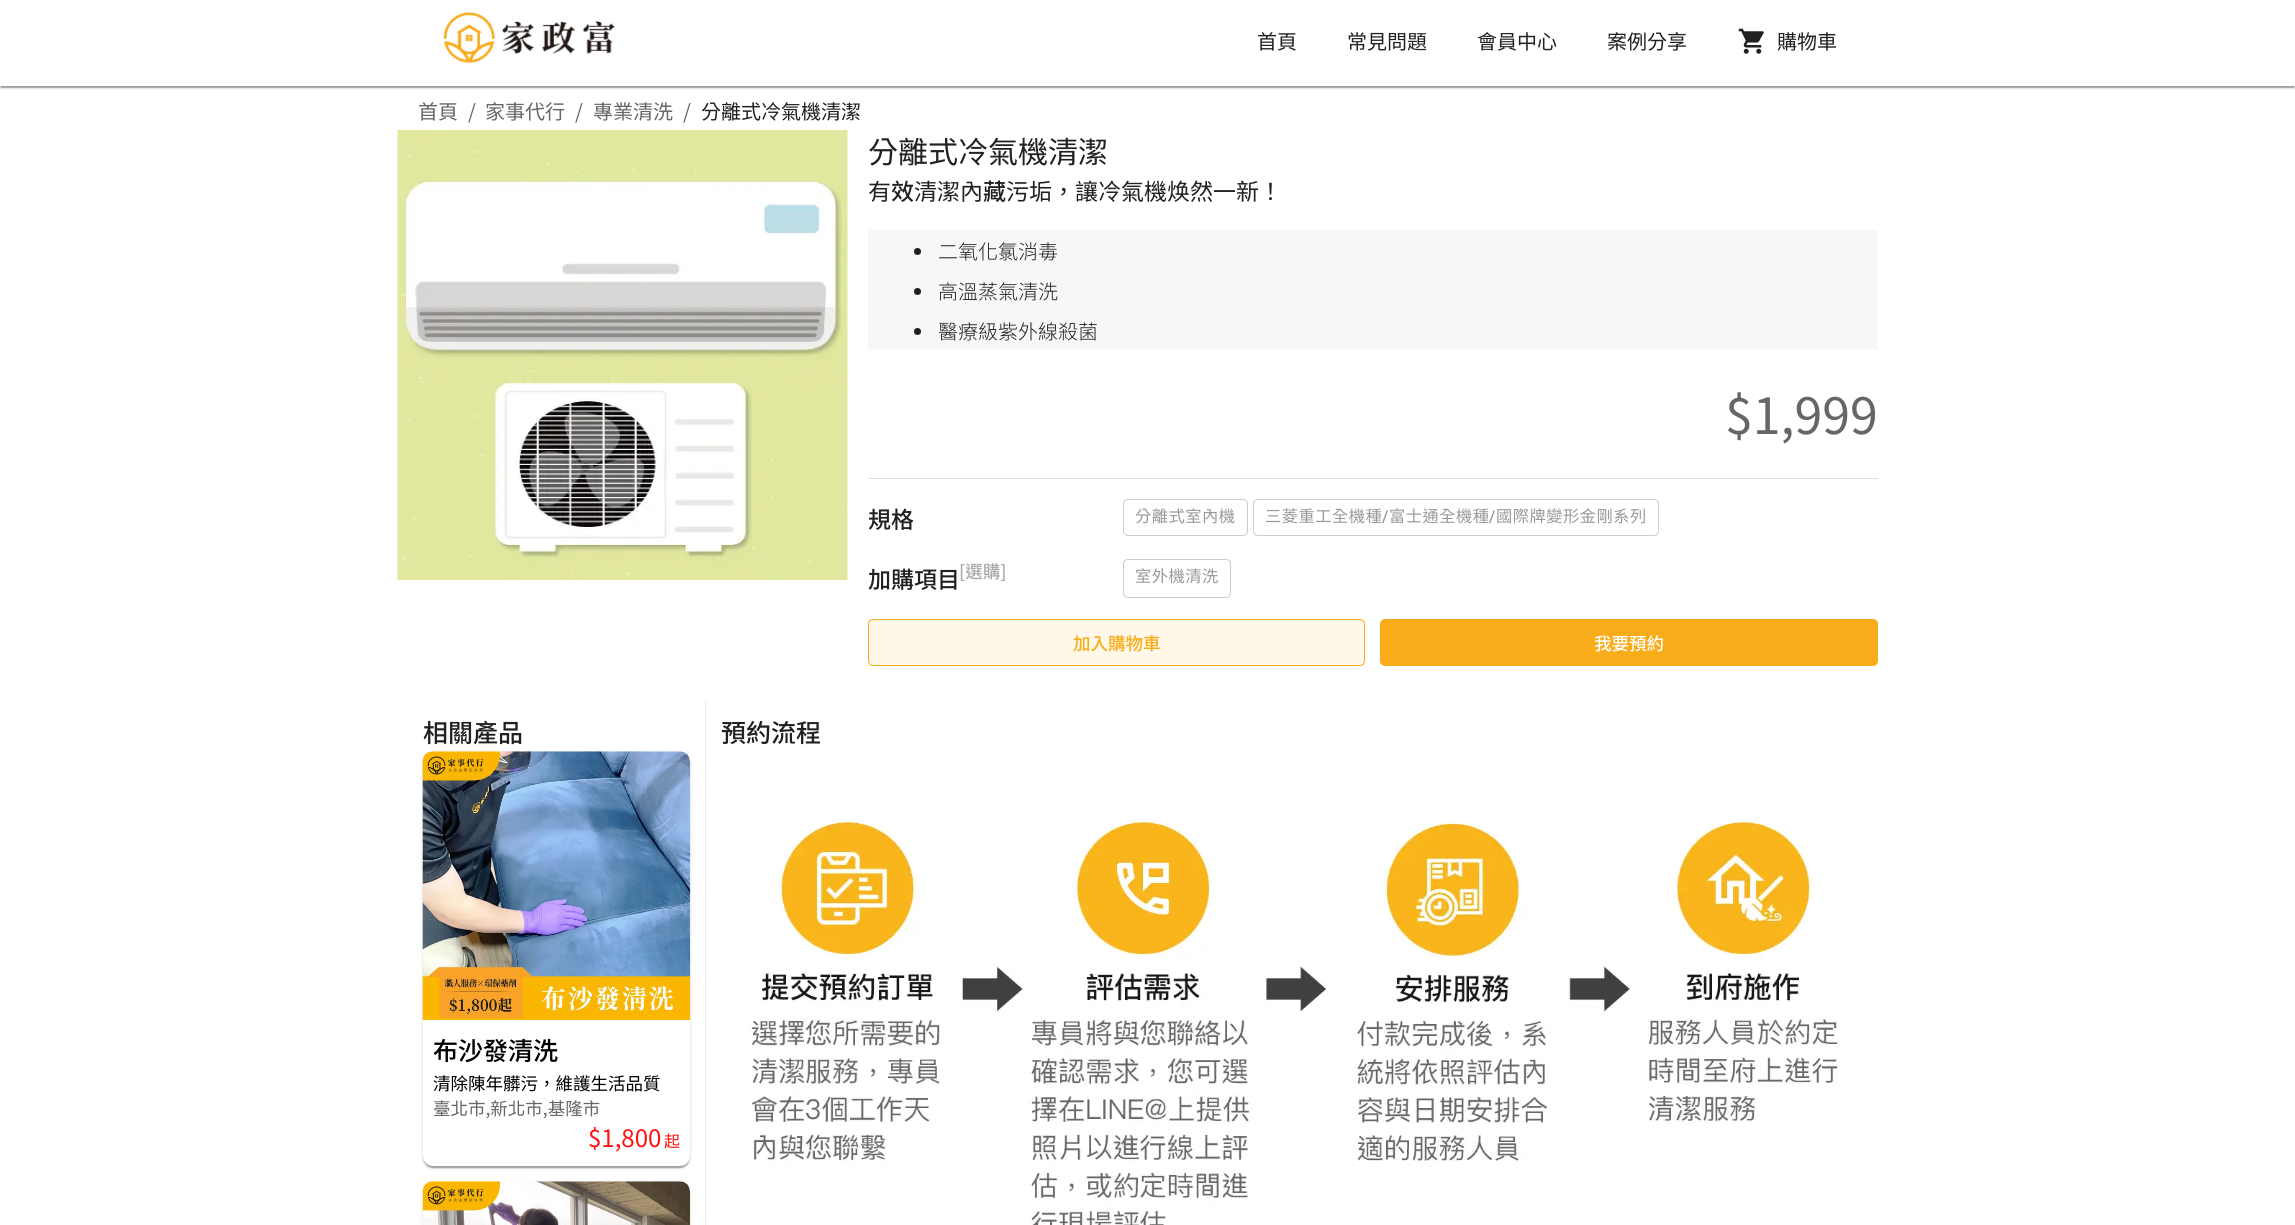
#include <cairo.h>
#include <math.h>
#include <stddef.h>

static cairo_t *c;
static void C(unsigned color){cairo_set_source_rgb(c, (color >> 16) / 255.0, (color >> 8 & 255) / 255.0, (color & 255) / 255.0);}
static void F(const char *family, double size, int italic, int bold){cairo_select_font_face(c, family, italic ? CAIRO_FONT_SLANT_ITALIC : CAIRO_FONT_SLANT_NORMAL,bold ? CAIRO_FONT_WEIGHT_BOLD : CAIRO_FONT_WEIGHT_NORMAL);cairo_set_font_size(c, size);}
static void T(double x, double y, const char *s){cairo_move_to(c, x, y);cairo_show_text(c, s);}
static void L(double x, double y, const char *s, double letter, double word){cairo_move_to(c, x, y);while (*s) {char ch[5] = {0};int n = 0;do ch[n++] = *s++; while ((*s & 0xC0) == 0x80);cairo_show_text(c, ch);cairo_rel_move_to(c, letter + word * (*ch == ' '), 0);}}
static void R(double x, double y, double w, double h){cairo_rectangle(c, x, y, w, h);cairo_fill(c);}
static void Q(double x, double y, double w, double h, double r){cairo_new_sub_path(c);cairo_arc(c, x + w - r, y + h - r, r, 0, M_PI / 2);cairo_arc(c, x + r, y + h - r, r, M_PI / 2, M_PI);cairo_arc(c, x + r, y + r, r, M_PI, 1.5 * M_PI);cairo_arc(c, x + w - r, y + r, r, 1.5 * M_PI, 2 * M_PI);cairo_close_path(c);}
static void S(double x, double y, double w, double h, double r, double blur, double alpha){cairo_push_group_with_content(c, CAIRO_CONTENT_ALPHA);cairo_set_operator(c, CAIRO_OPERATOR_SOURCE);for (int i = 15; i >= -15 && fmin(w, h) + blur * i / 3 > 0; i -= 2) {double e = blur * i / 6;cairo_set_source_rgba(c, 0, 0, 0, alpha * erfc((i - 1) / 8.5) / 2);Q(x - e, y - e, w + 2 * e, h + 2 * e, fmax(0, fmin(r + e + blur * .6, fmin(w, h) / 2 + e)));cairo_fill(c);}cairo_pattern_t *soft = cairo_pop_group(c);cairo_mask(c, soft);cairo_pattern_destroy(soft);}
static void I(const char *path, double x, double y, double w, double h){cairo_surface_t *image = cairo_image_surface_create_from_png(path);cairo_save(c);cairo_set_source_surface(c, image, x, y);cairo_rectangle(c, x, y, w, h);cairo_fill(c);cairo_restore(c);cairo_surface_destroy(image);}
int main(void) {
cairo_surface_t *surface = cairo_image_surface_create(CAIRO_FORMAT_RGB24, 2295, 1225);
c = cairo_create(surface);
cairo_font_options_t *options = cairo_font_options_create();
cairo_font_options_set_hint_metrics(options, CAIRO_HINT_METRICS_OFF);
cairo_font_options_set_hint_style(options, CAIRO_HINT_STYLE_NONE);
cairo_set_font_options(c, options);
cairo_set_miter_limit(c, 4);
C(0xffffff);
cairo_paint(c);
cairo_save(c);
cairo_rectangle(c,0,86,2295,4);
cairo_clip(c);
C(0x000000);
S(0,1,2295,87,0,2,.12);
cairo_restore(c);
cairo_save(c);
cairo_rectangle(c,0,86,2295,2);
cairo_clip(c);
C(0x000000);
S(0,1,2295,87,0,.5,.14);
cairo_restore(c);
cairo_save(c);
cairo_rectangle(c,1,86,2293,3);
cairo_clip(c);
C(0x000000);
S(1,4,2293,84,0,.5,.2);
cairo_restore(c);
I("1.png",443,12,173,52);
F("Noto Sans TC",20,0,0);
C(0x212121);
T(1257,49,"首頁");
T(1347,49,"常見問題");
T(1477,49,"會員中心");
T(1607,49,"案例分享");
I("2.png",1738,28,26,26);
T(1777,49,"購物車");
C(0x666666);
T(418,119,"首頁");
T(468,119,"/");
T(485,119,"家事代行");
T(575,119,"/");
T(593,119,"專業清洗");
T(683,119,"/");
C(0x212121);
T(701,119,"分離式冷氣機清潔");
I("3.png",397,130,451,450);
F("Noto Sans TC",30,0,0);
T(868,163,"分離式冷氣機清潔");
F("Noto Sans CJK TC",23,0,0);
T(868,200,"有");
F("Noto Sans TC Medium",23,0,0);
T(891,200,"效");
F("Noto Sans CJK TC",23,0,0);
T(914,200,"清潔內");
F("Noto Sans TC Medium",23,0,0);
T(983,200,"藏");
F("Noto Sans CJK TC",23,0,0);
T(1006,200,"污垢，讓冷氣機焕然一新！");
C(0xf7f7f7);
R(868,230,1010,120);
C(0x202020);
cairo_new_path(c);
cairo_arc(c,917.5,251.5,3.5,0,2 * M_PI);
cairo_fill(c);
F("Noto Sans TC Light",20,0,0);
C(0x212121);
T(938,259,"二氧化氯消毒");
C(0x202020);
cairo_new_path(c);
cairo_arc(c,917.5,291.5,3.5,0,2 * M_PI);
cairo_fill(c);
C(0x212121);
T(938,299,"高溫蒸氣清洗");
C(0x202020);
cairo_new_path(c);
cairo_arc(c,917.5,331.5,3.5,0,2 * M_PI);
cairo_fill(c);
C(0x212121);
T(938,339,"醫療級紫外線殺菌");
F("Noto Sans TC",50,0,0);
C(0x666666);
T(1725,434,"$1,999");
C(0xe0e0e0);
R(868,478,1010,1);
F("Noto Sans TC Medium",23,0,0);
C(0x212121);
T(868,528,"規格");
Q(1123.5,499.5,124,36,4.5);
C(0xcccccc);
cairo_set_line_width(c,1);
cairo_stroke(c);
F("Noto Sans CJK TC",16.25,0,0);
C(0x999999);
L(1135,522,"分離式室內機",.5,0);
Q(1253.5,499.5,405,36,4.5);
C(0xcccccc);
cairo_stroke(c);
C(0x999999);
L(1265,522,"三菱重工全機種",.5,0);
F("Roboto Medium",16.25,0,0);
L(1382,522,"/",.5,0);
F("Noto Sans CJK TC",16.25,0,0);
L(1389,522,"富士通全機種",.5,0);
F("Roboto Medium",16.25,0,0);
L(1489,522,"/",.5,0);
F("Noto Sans CJK TC",16.25,0,0);
L(1496,522,"國際牌變形金剛系列",.5,0);
F("Noto Sans TC Medium",23,0,0);
C(0x212121);
T(868,588,"加購項目");
F("Noto Sans TC Medium",17.5,0,0);
C(0xaaaaaa);
T(959,578,"[選購]");
Q(1123.5,559.5,107,38,4.5);
C(0xcccccc);
cairo_stroke(c);
F("Noto Sans CJK TC",16.25,0,0);
C(0x999999);
L(1135,582,"室外機清洗",.5,0);
C(0xfff7e8);
Q(868.5,619.5,496,46,4.5);
cairo_fill_preserve(c);
C(0xf9ac19);
cairo_stroke(c);
F("Noto Sans TC Medium",17.5,0,0);
T(1073,650,"加入購物車");
Q(1380,619,498,47,5);
cairo_fill(c);
C(0xffffff);
T(1594,650,"我要預約");
C(0xeeeeee);
R(705,701,1,524);
F("Noto Sans TC Medium",25,0,0);
C(0x212121);
T(423,742,"相關產品");
C(0x000000);
S(423,753,267,415,10,2,.12);
S(423,753,267,415,10,.5,.14);
S(424,755,265,413,9,.5,.2);
C(0xffffff);
Q(423,751,267,415,10);
cairo_fill(c);
I("4.png",422,751,268,269);
C(0x000000);
T(433,1060,"布沙發清洗");
F("Noto Sans TC",17.5,0,0);
T(433,1090,"清除陳年髒污，維護生活品質");
C(0x666666);
T(433,1115,"臺北市,新北市,基隆市");
F("Noto Sans TC",24,0,0);
C(0xff1111);
T(588,1147,"$1,800");
F("Noto Sans TC",16,0,0);
T(664,1147,"起");
C(0x000000);
S(423,1183,267,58,10,2,.12);
C(0xffffff);
Q(423,1181,267,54,10);
cairo_fill(c);
I("5.png",422,1181,268,44);
F("Noto Sans TC Medium",25,0,0);
C(0x212121);
T(721,742,"預約流程");
I("6.png",750,818,1088,407);
cairo_surface_write_to_png(surface, "o.png");
cairo_font_options_destroy(options);
cairo_destroy(c);
cairo_surface_destroy(surface);
return 0;
}
